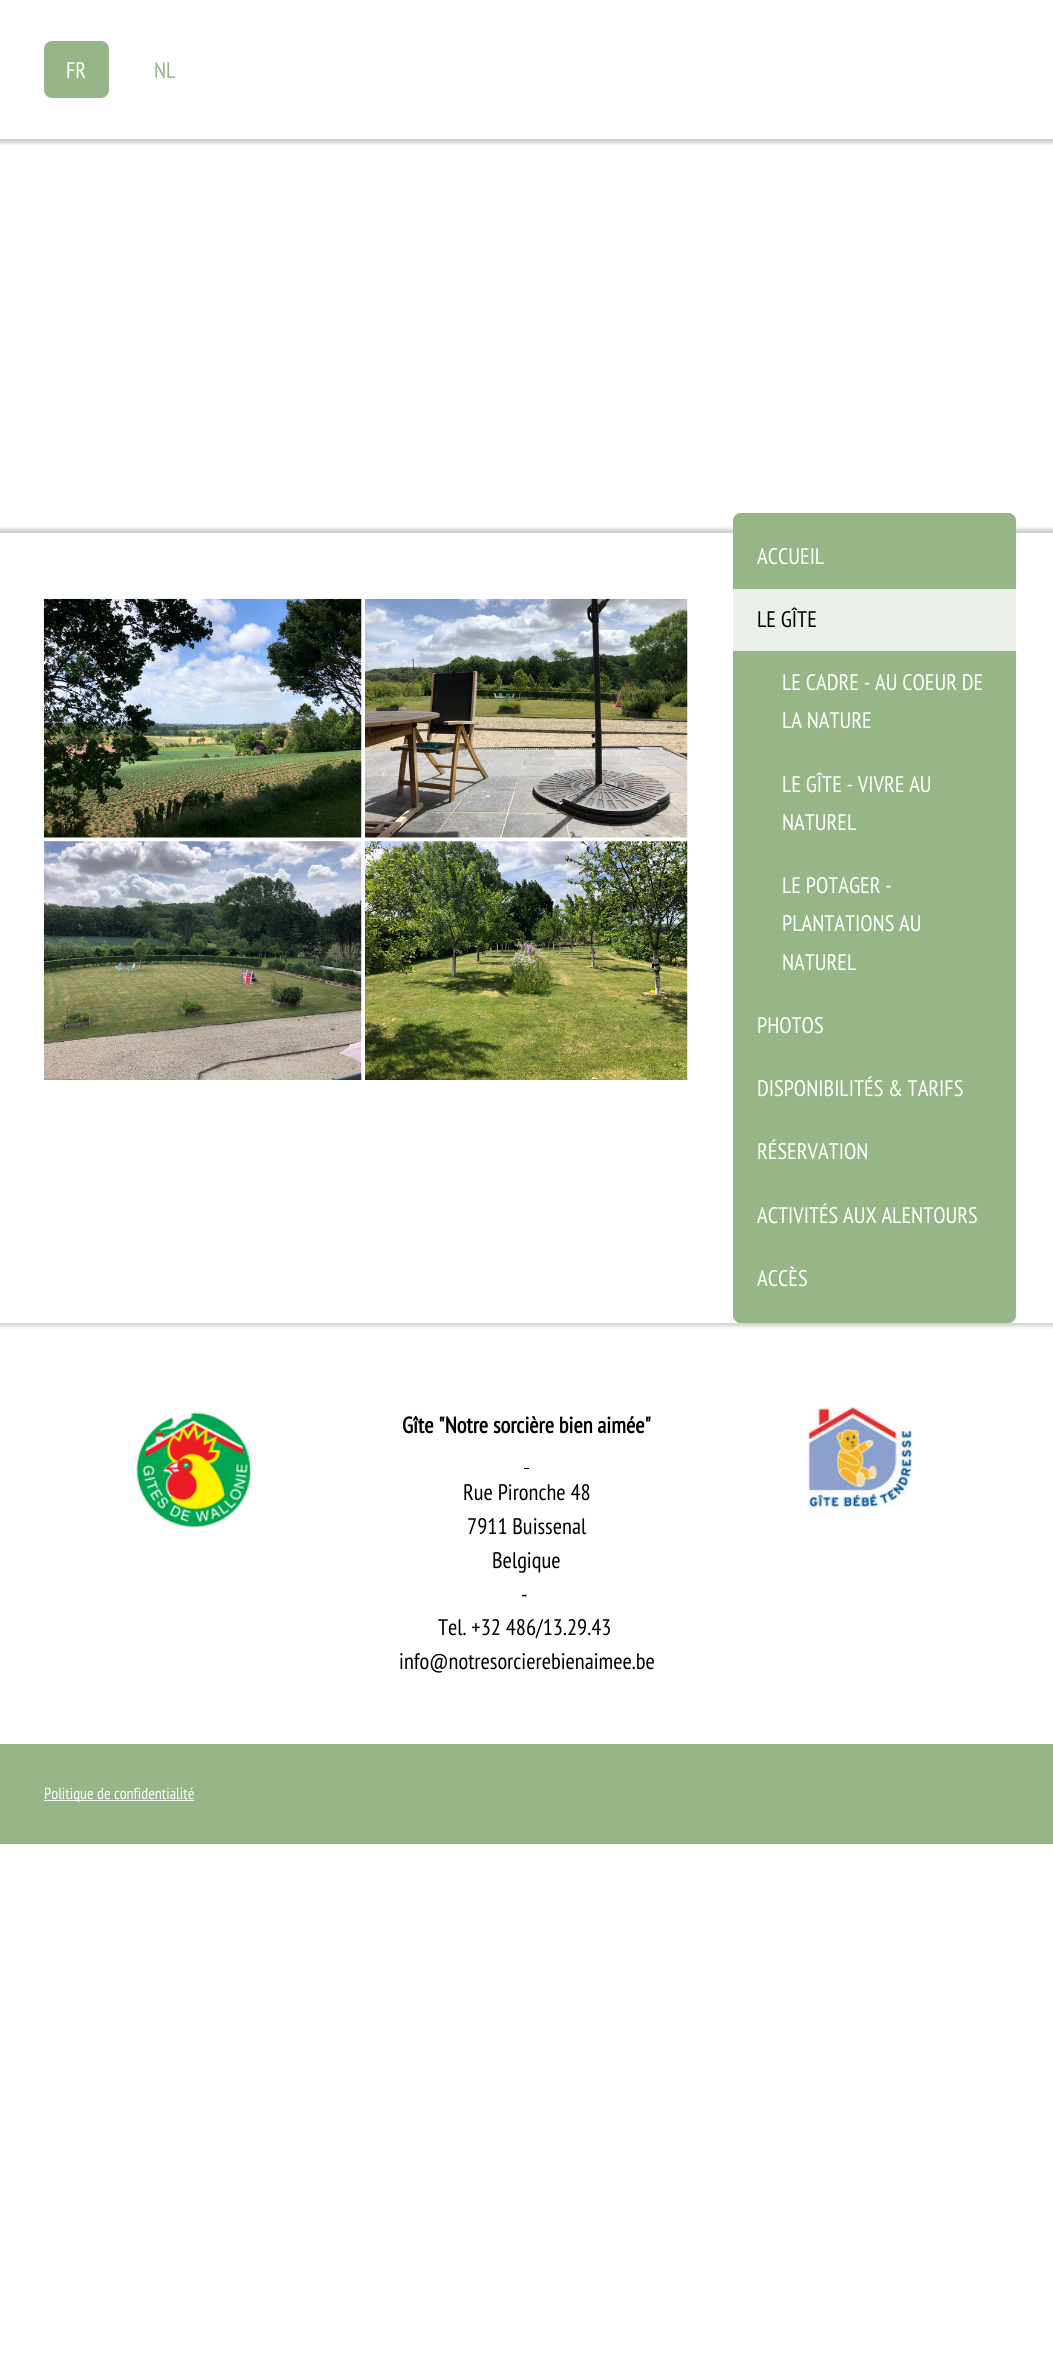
#include <cairo.h>
#include <math.h>
#include <stddef.h>

static cairo_t *c;
static void C(unsigned color){cairo_set_source_rgb(c, (color >> 16) / 255.0, (color >> 8 & 255) / 255.0, (color & 255) / 255.0);}
static void F(const char *family, double size, int italic, int bold){cairo_select_font_face(c, family, italic ? CAIRO_FONT_SLANT_ITALIC : CAIRO_FONT_SLANT_NORMAL,bold ? CAIRO_FONT_WEIGHT_BOLD : CAIRO_FONT_WEIGHT_NORMAL);cairo_set_font_size(c, size);}
static void T(double x, double y, const char *s){cairo_move_to(c, x, y);cairo_show_text(c, s);}
static void R(double x, double y, double w, double h){cairo_rectangle(c, x, y, w, h);cairo_fill(c);}
static void Q(double x, double y, double w, double h, double r){cairo_new_sub_path(c);cairo_arc(c, x + w - r, y + h - r, r, 0, M_PI / 2);cairo_arc(c, x + r, y + h - r, r, M_PI / 2, M_PI);cairo_arc(c, x + r, y + r, r, M_PI, 1.5 * M_PI);cairo_arc(c, x + w - r, y + r, r, 1.5 * M_PI, 2 * M_PI);cairo_close_path(c);}
static void S(double x, double y, double w, double h, double r, double blur, double alpha){cairo_push_group_with_content(c, CAIRO_CONTENT_ALPHA);cairo_set_operator(c, CAIRO_OPERATOR_SOURCE);for (int i = 15; i >= -15 && fmin(w, h) + blur * i / 3 > 0; i -= 2) {double e = blur * i / 6;cairo_set_source_rgba(c, 0, 0, 0, alpha * erfc((i - 1) / 8.5) / 2);Q(x - e, y - e, w + 2 * e, h + 2 * e, fmax(0, fmin(r + e + blur * .6, fmin(w, h) / 2 + e)));cairo_fill(c);}cairo_pattern_t *soft = cairo_pop_group(c);cairo_mask(c, soft);cairo_pattern_destroy(soft);}
static void I(const char *path, double x, double y, double w, double h){cairo_surface_t *image = cairo_image_surface_create_from_png(path);cairo_save(c);cairo_set_source_surface(c, image, x, y);cairo_rectangle(c, x, y, w, h);cairo_fill(c);cairo_restore(c);cairo_surface_destroy(image);}
int main(void) {
cairo_surface_t *surface = cairo_image_surface_create(CAIRO_FORMAT_RGB24, 1053, 2379);
c = cairo_create(surface);
cairo_font_options_t *options = cairo_font_options_create();
cairo_font_options_set_hint_metrics(options, CAIRO_HINT_METRICS_OFF);
cairo_font_options_set_hint_style(options, CAIRO_HINT_STYLE_NONE);
cairo_set_font_options(c, options);
cairo_set_miter_limit(c, 4);
C(0xffffff);
cairo_paint(c);
C(0x000000);
S(-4,-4,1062,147,0,2,.2);
C(0xffffff);
R(0,0,1053,139);
C(0x97b688);
Q(44,41,65,57,8);
cairo_fill(c);
F("PT Sans Narrow",22.5,0,0);
C(0xffffff);
T(66,78,"FR");
C(0x97b688);
T(154,78,"NL");
C(0x000000);
S(-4,529,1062,797,0,2,.2);
C(0xffffff);
R(0,533,1053,790);
I("1.png",43,598,319,240);
I("2.png",365,598,323,240);
I("3.png",43,841,319,239);
I("4.png",365,841,323,239);
C(0x97b688);
Q(733,513,283,810,8);
cairo_fill(c);
cairo_new_path(c);
cairo_move_to(c,741,513);
cairo_line_to(c,1008,513);
cairo_curve_to(c,1012.5,513,1016,516.5,1016,521);
cairo_line_to(c,1016,589);
cairo_line_to(c,733,589);
cairo_line_to(c,733,521);
cairo_curve_to(c,733,516.5,736.5,513,741,513);
cairo_close_path(c);
cairo_fill(c);
C(0xffffff);
T(757,564,"ACCUEIL");
C(0xeaf0e7);
R(733,589,283,62);
C(0x000000);
T(757,627,"LE GÎTE");
C(0xffffff);
T(782,690,"LE CADRE - AU COEUR DE");
T(782,728,"LA NATURE");
T(782,792,"LE GÎTE - VIVRE AU");
T(782,830,"NATUREL");
T(782,893,"LE POTAGER -");
T(782,931,"PLANTATIONS AU");
T(782,970,"NATUREL");
T(757,1033,"PHOTOS");
T(757,1096,"DISPONIBILITÉS & TARIFS");
T(757,1159,"RÉSERVATION");
T(757,1223,"ACTIVITÉS AUX ALENTOURS");
C(0x97b688);
cairo_new_path(c);
cairo_move_to(c,733,1248);
cairo_line_to(c,1016,1248);
cairo_line_to(c,1016,1315);
cairo_curve_to(c,1016,1319.5,1012.5,1323,1008,1323);
cairo_line_to(c,741,1323);
cairo_curve_to(c,736.5,1323,733,1319.5,733,1315);
cairo_close_path(c);
cairo_fill(c);
C(0xffffff);
T(757,1286,"ACCÈS");
I("5.png",134,1410,120,120);
F("PT Sans Narrow",22.5,0,1);
C(0x000000);
T(402,1433,"Gîte \"Notre sorcière bien aimée\"");
R(524,1468,5,1);
F("PT Sans Narrow",22.5,0,0);
T(463,1500,"Rue Pironche 48");
T(467,1534,"7911 Buissenal");
T(492,1568,"Belgique");
T(521,1602,"-");
T(438,1635,"Tel. +32 486/13.29.43");
T(399,1669,"info@notresorcierebienaimee.be");
I("6.png",808,1407,104,100);
C(0x97b688);
R(0,1744,1053,100);
C(0xffffff);
R(44,1800,150,1);
F("PT Sans Narrow",16,0,0);
T(44,1799,"Politique de confidentialité");
cairo_surface_write_to_png(surface, "o.png");
cairo_font_options_destroy(options);
cairo_destroy(c);
cairo_surface_destroy(surface);
return 0;
}
